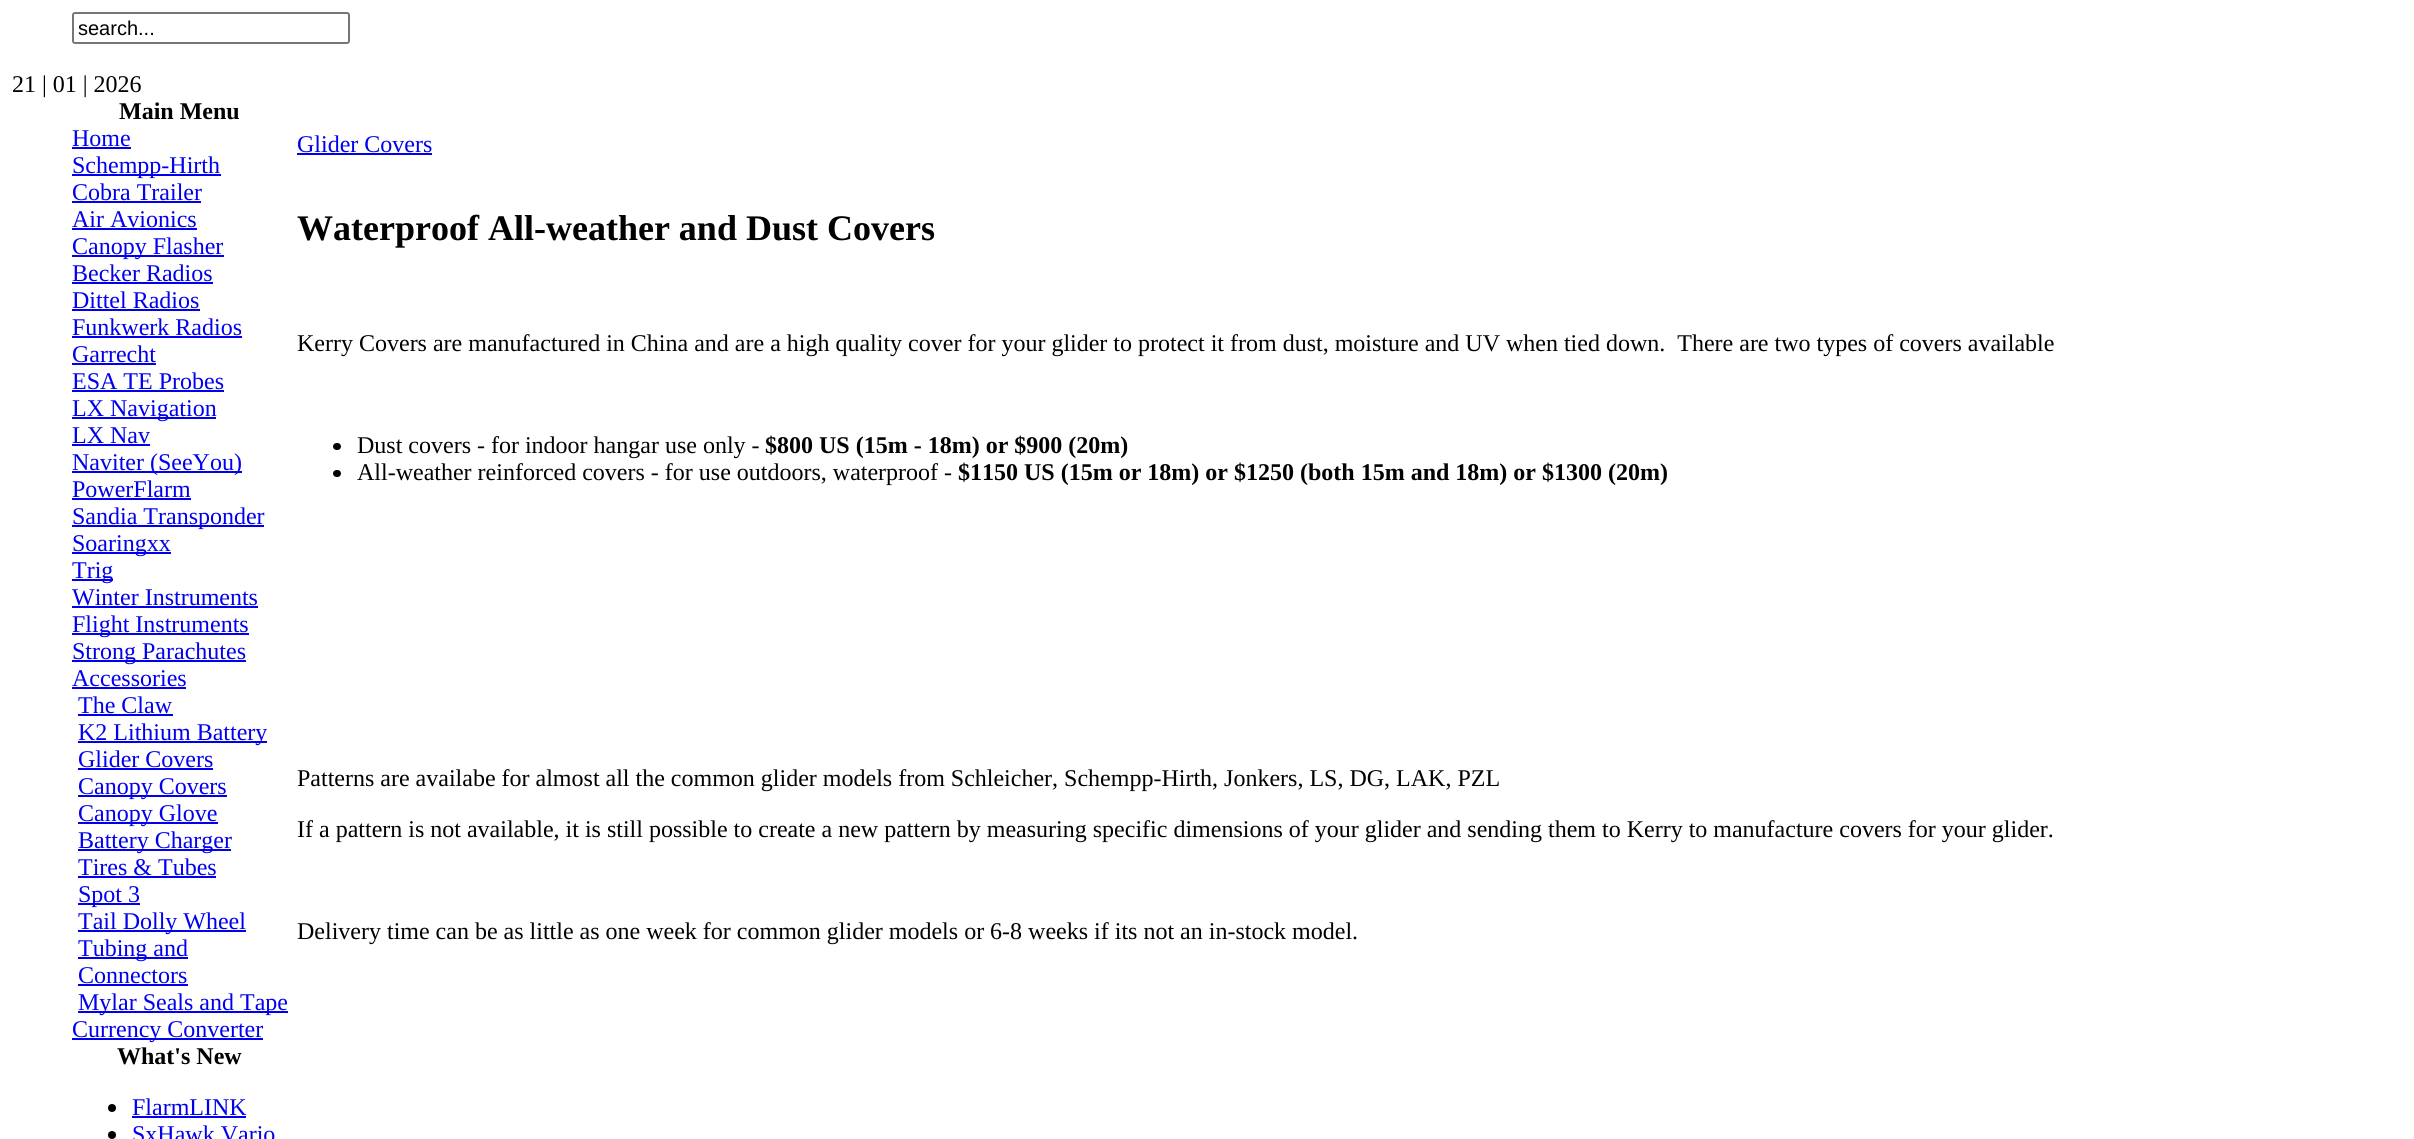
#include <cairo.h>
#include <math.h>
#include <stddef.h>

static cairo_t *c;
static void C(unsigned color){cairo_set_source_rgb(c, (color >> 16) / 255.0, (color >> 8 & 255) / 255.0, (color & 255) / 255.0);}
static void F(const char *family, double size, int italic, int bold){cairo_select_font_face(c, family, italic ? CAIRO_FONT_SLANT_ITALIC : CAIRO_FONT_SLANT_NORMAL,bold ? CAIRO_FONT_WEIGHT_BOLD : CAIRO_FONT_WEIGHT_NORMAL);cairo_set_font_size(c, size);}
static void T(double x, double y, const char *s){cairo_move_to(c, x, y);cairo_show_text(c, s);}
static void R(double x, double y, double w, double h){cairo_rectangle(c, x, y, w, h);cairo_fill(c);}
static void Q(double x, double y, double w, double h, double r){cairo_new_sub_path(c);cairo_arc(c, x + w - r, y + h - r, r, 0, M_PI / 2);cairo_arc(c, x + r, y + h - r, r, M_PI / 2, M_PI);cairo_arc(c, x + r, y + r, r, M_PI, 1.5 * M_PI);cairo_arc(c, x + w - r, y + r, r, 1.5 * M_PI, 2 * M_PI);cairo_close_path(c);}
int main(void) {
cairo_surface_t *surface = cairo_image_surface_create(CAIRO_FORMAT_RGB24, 2414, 1139);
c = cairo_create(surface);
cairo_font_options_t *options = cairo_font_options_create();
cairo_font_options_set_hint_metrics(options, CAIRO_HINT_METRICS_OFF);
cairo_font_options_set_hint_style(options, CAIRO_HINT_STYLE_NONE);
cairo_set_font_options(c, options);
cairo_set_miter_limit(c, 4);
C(0xffffff);
cairo_paint(c);
Q(73,13,276,30,2);
C(0x767676);
cairo_stroke(c);
F("Liberation Sans",20,0,0);
C(0x000000);
T(78,35,"search...");
F("Liberation Serif",24,0,0);
T(12,92,"21 | 01 | 2026");
F("Liberation Serif",24,0,1);
T(119,119,"Main Menu");
F("Liberation Serif",24,0,0);
C(0x0000ee);
T(72,146,"Home");
R(72,147,59,2);
R(72,174,149,2);
T(72,173,"Schempp-Hirth");
T(72,200,"Cobra Trailer");
R(72,201,129,2);
T(72,227,"Air Avionics");
R(72,228,125,2);
R(72,255,152,2);
T(72,254,"Canopy Flasher");
T(72,281,"Becker Radios");
R(72,282,141,2);
T(72,308,"Dittel Radios");
R(72,309,128,2);
T(72,335,"Funkwerk Radios");
R(72,336,170,2);
T(72,362,"Garrecht");
R(72,363,84,2);
T(72,389,"ESA TE Probes");
R(72,390,152,2);
R(72,417,144,2);
T(72,416,"LX Navigation");
T(72,443,"LX Nav");
R(72,444,78,2);
R(72,471,170,2);
T(72,470,"Naviter (SeeYou)");
T(72,497,"PowerFlarm");
R(72,498,119,2);
R(72,525,192,2);
T(72,524,"Sandia Transponder");
R(72,552,99,2);
T(72,551,"Soaringxx");
R(72,579,41,2);
T(72,578,"Trig");
T(72,605,"Winter Instruments");
R(72,606,186,2);
R(72,633,177,2);
T(72,632,"Flight Instruments");
R(72,660,174,2);
T(72,659,"Strong Parachutes");
T(72,686,"Accessories");
R(72,687,114,2);
T(78,713,"The Claw");
R(78,714,95,2);
R(78,741,189,2);
T(78,740,"K2 Lithium Battery");
T(78,767,"Glider Covers");
R(78,768,135,2);
R(78,795,149,2);
T(78,794,"Canopy Covers");
R(78,822,140,2);
T(78,821,"Canopy Glove");
R(78,849,153,2);
T(78,848,"Battery Charger");
T(78,875,"Tires & Tubes");
R(78,876,138,2);
R(78,903,62,2);
T(78,902,"Spot 3");
R(78,930,168,2);
T(78,929,"Tail Dolly Wheel");
R(78,957,110,2);
T(78,956,"Tubing and");
T(78,983,"Connectors");
R(78,984,110,2);
R(78,1011,210,2);
T(78,1010,"Mylar Seals and Tape");
R(72,1038,191,2);
T(72,1037,"Currency Converter");
F("Liberation Serif",24,0,1);
C(0x000000);
T(117,1064,"What's New");
cairo_new_path(c);
cairo_arc(c,112,1108,4,0,2 * M_PI);
cairo_fill(c);
F("Liberation Serif",24,0,0);
C(0x0000ee);
T(132,1115,"FlarmLINK");
R(132,1116,114,2);
C(0x000000);
cairo_new_path(c);
cairo_arc(c,112,1135,4,0,2 * M_PI);
cairo_fill(c);
C(0x0000ee);
T(132,1142,"SxHawk Vario");
T(297,152,"Glider Covers");
R(297,153,135,2);
F("Liberation Serif",36,0,1);
C(0x000000);
T(297,240,"Waterproof All-weather and Dust Covers");
F("Liberation Serif",24,0,0);
T(297,351,"Kerry Covers are manufactured in China and are a high quality cover for your glider to protect it from dust, moisture and UV when tied down.  There are two types of covers available");
Q(333,443,8,7,3.5);
cairo_fill(c);
T(357,453,"Dust covers - for indoor hangar use only -");
F("Liberation Serif",24,0,1);
T(765,453,"$800 US (15m - 18m) or $900 (20m)");
Q(333,470,8,7,3.5);
cairo_fill(c);
F("Liberation Serif",24,0,0);
T(357,480,"All-weather reinforced covers - for use outdoors, waterproof -");
F("Liberation Serif",24,0,1);
T(958,480,"$1150 US (15m or 18m) or $1250 (both 15m and 18m) or $1300 (20m)");
F("Liberation Serif",24,0,0);
T(297,786,"Patterns are availabe for almost all the common glider models from Schleicher, Schempp-Hirth, Jonkers, LS, DG, LAK, PZL");
T(297,837,"If a pattern is not available, it is still possible to create a new pattern by measuring specific dimensions of your glider and sending them to Kerry to manufacture covers for your glider.");
T(297,939,"Delivery time can be as little as one week for common glider models or 6-8 weeks if its not an in-stock model.");
cairo_surface_write_to_png(surface, "o.png");
cairo_font_options_destroy(options);
cairo_destroy(c);
cairo_surface_destroy(surface);
return 0;
}
